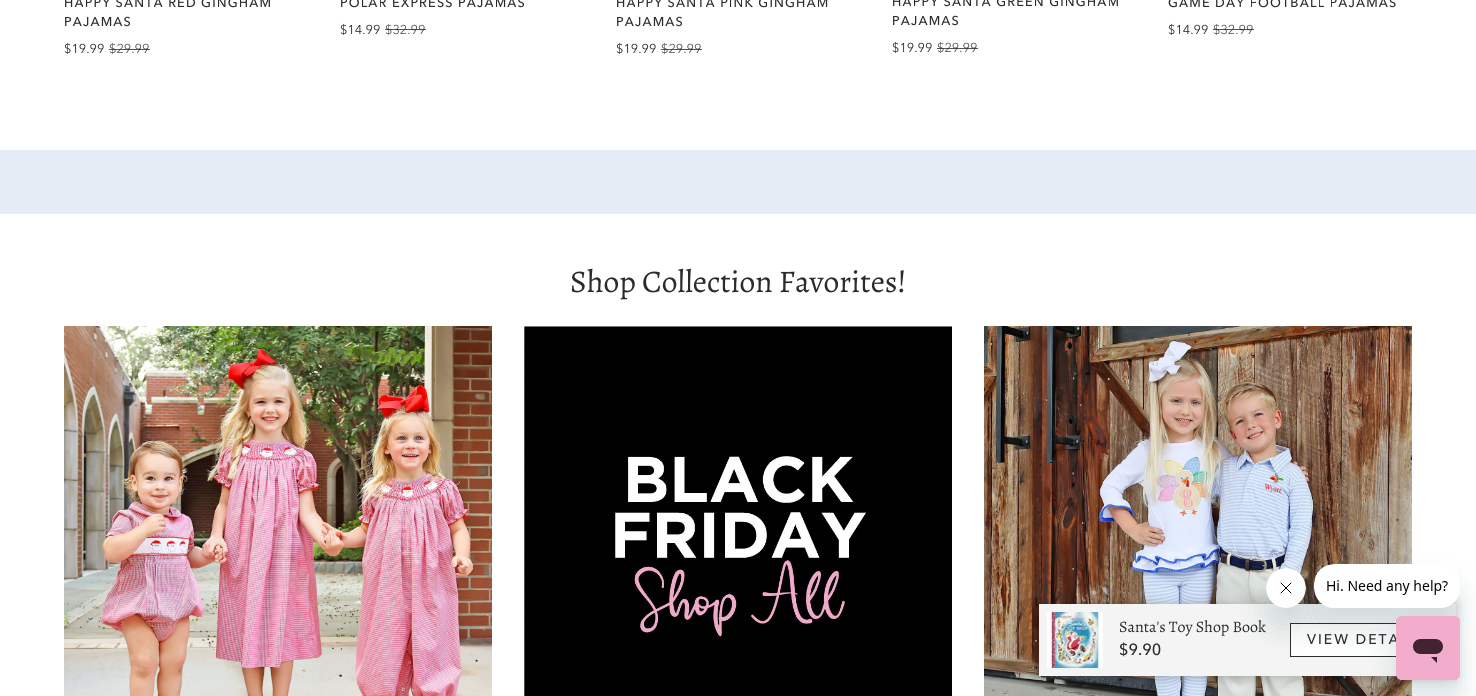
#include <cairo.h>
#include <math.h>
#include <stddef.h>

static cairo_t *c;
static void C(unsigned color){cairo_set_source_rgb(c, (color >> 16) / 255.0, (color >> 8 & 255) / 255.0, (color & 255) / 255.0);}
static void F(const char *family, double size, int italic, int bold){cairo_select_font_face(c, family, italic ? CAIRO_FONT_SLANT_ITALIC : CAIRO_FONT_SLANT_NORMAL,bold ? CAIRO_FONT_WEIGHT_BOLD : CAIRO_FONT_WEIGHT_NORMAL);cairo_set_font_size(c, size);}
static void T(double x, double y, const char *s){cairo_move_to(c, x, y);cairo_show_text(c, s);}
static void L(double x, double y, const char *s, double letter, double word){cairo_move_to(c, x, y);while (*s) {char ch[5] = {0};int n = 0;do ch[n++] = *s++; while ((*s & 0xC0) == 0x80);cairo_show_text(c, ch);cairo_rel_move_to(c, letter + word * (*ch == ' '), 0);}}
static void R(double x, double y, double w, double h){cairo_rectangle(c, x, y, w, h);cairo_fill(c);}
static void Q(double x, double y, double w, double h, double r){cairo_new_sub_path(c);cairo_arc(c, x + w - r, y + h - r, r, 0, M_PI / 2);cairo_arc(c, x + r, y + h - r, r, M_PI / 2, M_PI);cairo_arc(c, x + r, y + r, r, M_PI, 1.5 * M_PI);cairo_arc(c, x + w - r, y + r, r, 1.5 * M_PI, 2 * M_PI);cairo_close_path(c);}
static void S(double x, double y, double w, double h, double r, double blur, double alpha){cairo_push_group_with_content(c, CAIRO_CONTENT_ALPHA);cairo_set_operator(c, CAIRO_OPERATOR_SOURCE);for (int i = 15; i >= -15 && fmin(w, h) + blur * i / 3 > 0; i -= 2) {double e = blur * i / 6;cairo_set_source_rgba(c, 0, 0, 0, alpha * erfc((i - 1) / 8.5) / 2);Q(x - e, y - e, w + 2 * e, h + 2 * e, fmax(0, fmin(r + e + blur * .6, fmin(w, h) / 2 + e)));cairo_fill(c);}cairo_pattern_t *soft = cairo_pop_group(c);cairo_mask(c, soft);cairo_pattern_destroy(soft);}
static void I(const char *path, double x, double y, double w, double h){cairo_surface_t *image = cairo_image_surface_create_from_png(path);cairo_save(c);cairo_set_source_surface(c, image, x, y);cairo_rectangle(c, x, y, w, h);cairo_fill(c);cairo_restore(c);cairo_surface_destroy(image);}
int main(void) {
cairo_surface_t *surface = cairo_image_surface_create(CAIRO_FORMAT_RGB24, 1476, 696);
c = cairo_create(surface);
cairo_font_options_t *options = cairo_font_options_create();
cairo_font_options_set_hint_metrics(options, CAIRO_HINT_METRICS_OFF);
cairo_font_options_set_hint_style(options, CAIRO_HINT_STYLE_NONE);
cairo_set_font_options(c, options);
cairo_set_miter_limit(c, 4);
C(0xffffff);
cairo_paint(c);
F("Avenir Next Medium",12.75,0,0);
C(0x2a2b2a);
L(64,7,"HAPPY SANTA RED GINGHAM",1.15,0);
L(64,26,"PAJAMAS",1.15,0);
F("Avenir Next",12.75,0,0);
T(64,53,"$19.99");
C(0x555555);
T(109,53,"$29.99");
cairo_set_source_rgba(c,0.165,0.169,0.165,0.8);
R(109,49,41,1);
F("Avenir Next Medium",12.75,0,0);
C(0x2a2b2a);
L(340,7,"POLAR EXPRESS PAJAMAS",1.15,0);
F("Avenir Next",12.75,0,0);
T(340,34,"$14.99");
C(0x555555);
T(385,34,"$32.99");
cairo_set_source_rgba(c,0.165,0.169,0.165,0.8);
R(385,29,41,1);
F("Avenir Next Medium",12.75,0,0);
C(0x2a2b2a);
L(616,7,"HAPPY SANTA PINK GINGHAM",1.15,0);
L(616,26,"PAJAMAS",1.15,0);
F("Avenir Next",12.75,0,0);
T(616,53,"$19.99");
C(0x555555);
T(661,53,"$29.99");
cairo_set_source_rgba(c,0.165,0.169,0.165,0.8);
R(661,49,41,1);
F("Avenir Next Medium",12.75,0,0);
C(0x2a2b2a);
L(892,6,"HAPPY SANTA GREEN GINGHAM",1.15,0);
L(892,25,"PAJAMAS",1.15,0);
F("Avenir Next",12.75,0,0);
T(892,52,"$19.99");
C(0x555555);
T(937,52,"$29.99");
cairo_set_source_rgba(c,0.165,0.169,0.165,0.8);
R(937,48,41,1);
F("Avenir Next Medium",12.75,0,0);
C(0x2a2b2a);
L(1168,7,"GAME DAY FOOTBALL PAJAMAS",1.15,0);
F("Avenir Next",12.75,0,0);
T(1168,34,"$14.99");
C(0x555555);
T(1213,34,"$32.99");
cairo_set_source_rgba(c,0.165,0.169,0.165,0.8);
R(1213,29,41,1);
C(0xe4edf5);
R(0,150,1476,64);
F("Alegreya",31.5,0,0);
C(0x2a2b2a);
T(570,292,"Shop Collection Favorites!");
I("1.png",64,326,428,370);
I("2.png",524,326,428,370);
I("3.png",984,326,428,370);
C(0x000000);
S(1035,603,421,76,0,5,.2);
C(0xf4f4f4);
R(1039,604,417,72);
I("4.png",1047,612,56,56);
F("Alegreya",16,0,0);
C(0x2a2b2a);
T(1119,632,"Santa's Toy Shop Book");
F("Avenir Next Medium",16,0,0);
T(1119,655,"$9.90");
C(0xfefefe);
R(1291,624,105,32);
cairo_rectangle(c,1290.5,623.5,153,33);
C(0x2a2b2a);
cairo_set_line_width(c,1);
cairo_stroke(c);
F("Avenir Next Medium",14,0,0);
L(1307,644,"VIEW DETA",2,0);
C(0x17494d);
S(1266,588,40,40,20,15,.15);
I("6.png",1266,568,40,40);
cairo_save(c);
cairo_set_fill_rule(c,CAIRO_FILL_RULE_EVEN_ODD);
cairo_new_path(c);
cairo_move_to(c,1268,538);
cairo_line_to(c,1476,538);
cairo_line_to(c,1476,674);
cairo_line_to(c,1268,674);
cairo_close_path(c);
cairo_move_to(c,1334,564);
cairo_line_to(c,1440,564);
cairo_curve_to(c,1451,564,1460,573,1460,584);
cairo_line_to(c,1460,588);
cairo_curve_to(c,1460,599,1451,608,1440,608);
cairo_line_to(c,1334,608);
cairo_curve_to(c,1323,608,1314,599,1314,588);
cairo_line_to(c,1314,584);
cairo_curve_to(c,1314,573,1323,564,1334,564);
cairo_close_path(c);
cairo_clip(c);
S(1314,584,146,44,20,15,.15);
cairo_restore(c);
I("5.png",1314,564,143,44);
S(1396,636,64,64,6,15,.15);
I("7.png",1396,616,64,64);
cairo_surface_write_to_png(surface, "o.png");
cairo_font_options_destroy(options);
cairo_destroy(c);
cairo_surface_destroy(surface);
return 0;
}
